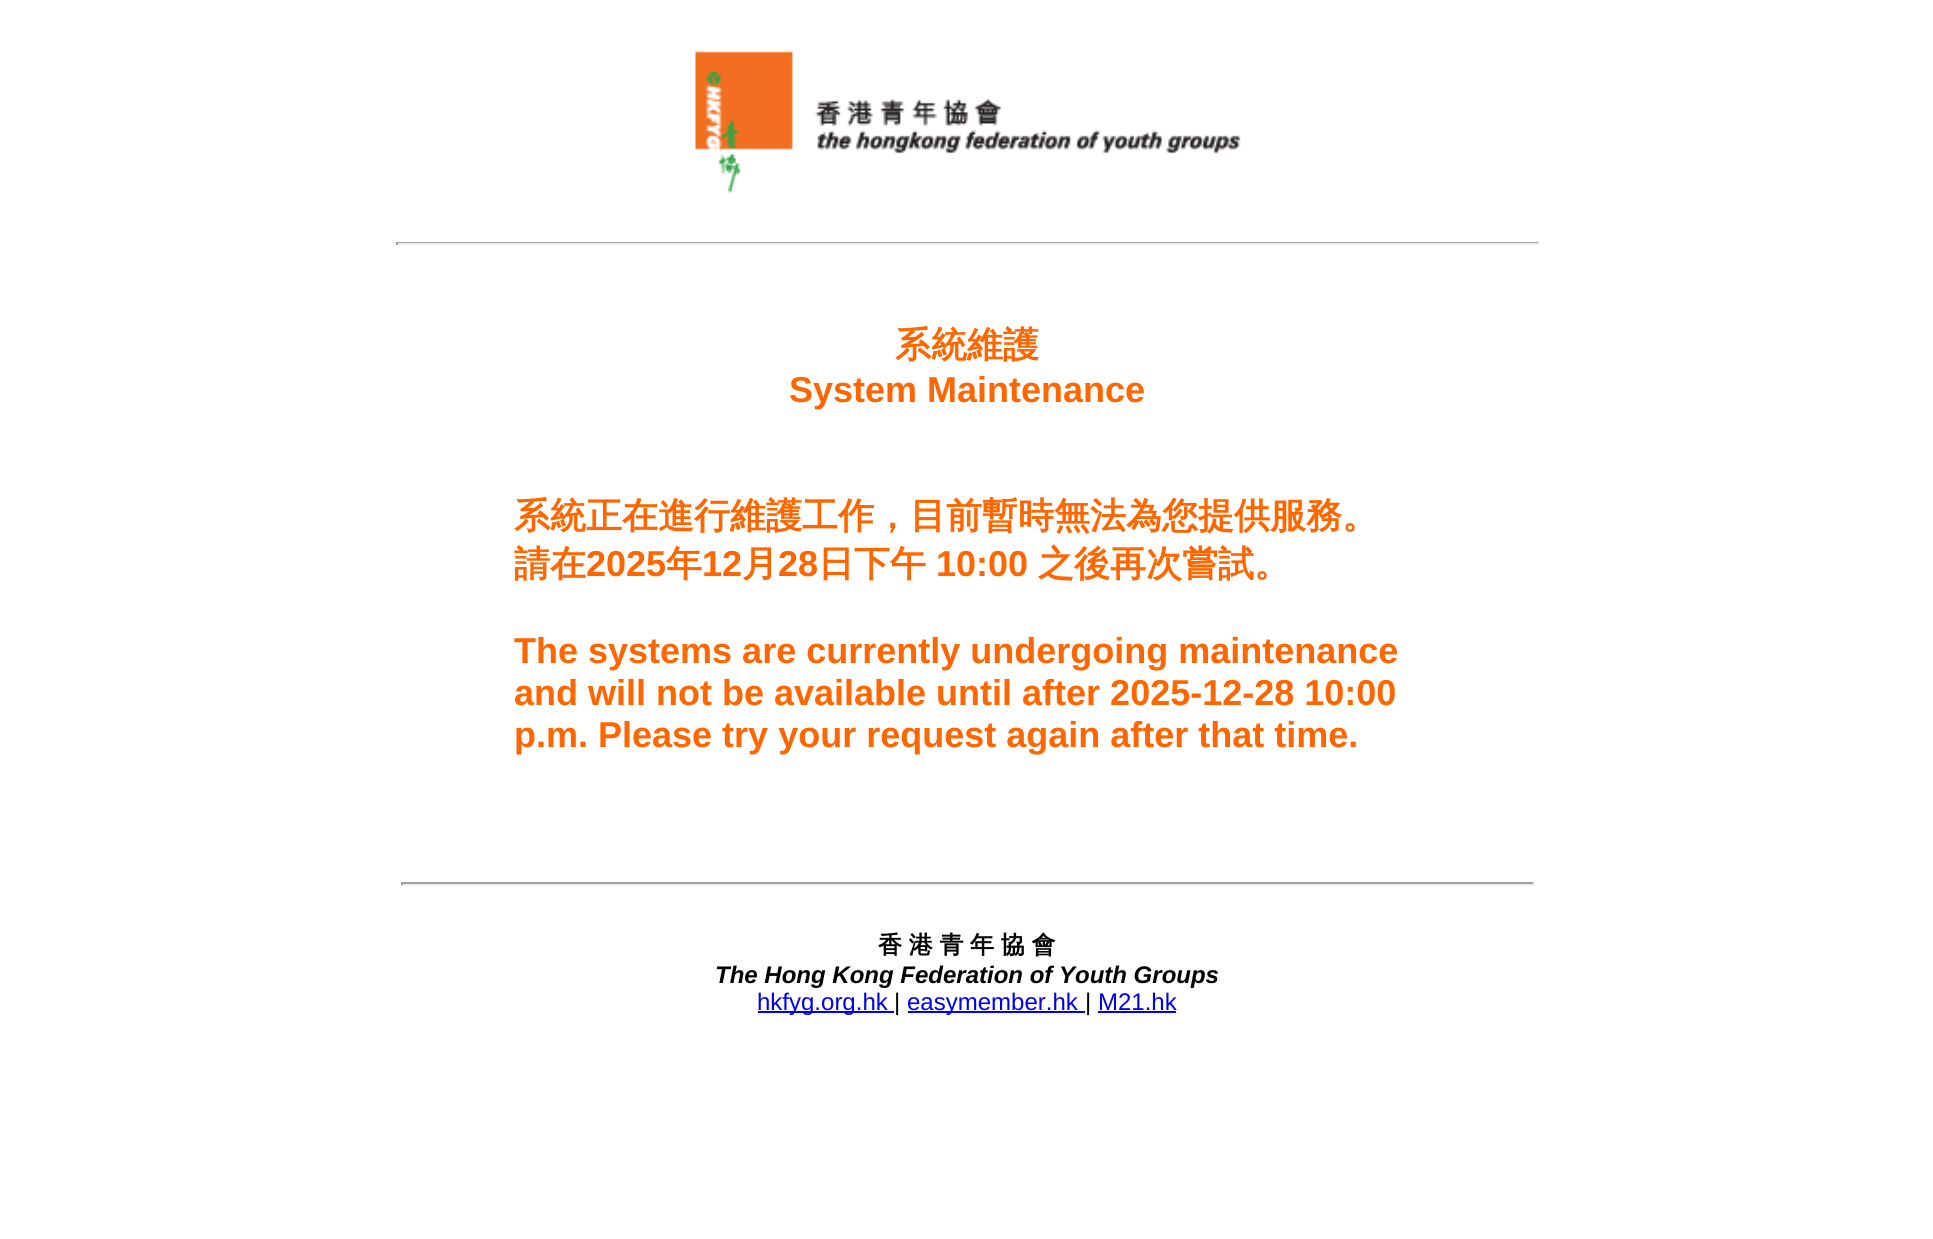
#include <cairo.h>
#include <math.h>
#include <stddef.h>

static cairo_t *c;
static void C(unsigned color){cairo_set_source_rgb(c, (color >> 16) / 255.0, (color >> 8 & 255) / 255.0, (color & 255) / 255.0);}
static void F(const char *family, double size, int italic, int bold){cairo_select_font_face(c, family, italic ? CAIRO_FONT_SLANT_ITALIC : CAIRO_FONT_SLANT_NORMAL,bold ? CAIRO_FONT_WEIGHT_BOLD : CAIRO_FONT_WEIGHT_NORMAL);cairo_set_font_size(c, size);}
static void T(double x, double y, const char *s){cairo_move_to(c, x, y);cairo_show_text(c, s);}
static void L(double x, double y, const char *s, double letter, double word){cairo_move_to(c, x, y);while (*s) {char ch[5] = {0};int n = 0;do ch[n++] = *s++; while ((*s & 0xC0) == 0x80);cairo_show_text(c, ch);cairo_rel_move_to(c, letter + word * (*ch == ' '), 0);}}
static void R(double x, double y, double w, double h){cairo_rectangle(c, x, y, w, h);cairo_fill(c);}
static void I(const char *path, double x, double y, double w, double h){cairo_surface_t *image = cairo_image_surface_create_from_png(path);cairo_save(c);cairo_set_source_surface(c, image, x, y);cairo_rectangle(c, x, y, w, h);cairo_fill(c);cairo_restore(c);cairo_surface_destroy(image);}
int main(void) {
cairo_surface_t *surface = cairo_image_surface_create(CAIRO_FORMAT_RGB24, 1933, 1239);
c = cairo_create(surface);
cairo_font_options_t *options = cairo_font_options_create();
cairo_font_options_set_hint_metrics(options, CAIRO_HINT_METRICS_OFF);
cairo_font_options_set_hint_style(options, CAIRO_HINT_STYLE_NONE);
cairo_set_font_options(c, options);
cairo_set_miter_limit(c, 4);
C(0xffffff);
cairo_paint(c);
I("1.png",695,51,546,143);
C(0x9f9f9f);
R(396,242,1143,1);
C(0xeeeeee);
R(1538,242,2,3);
R(396,243,1143,2);
C(0x9f9f9f);
R(396,242,2,3);
F("WenQuanYi Zen Hei",36,0,1);
C(0xff6600);
T(895,357,"系統維護");
F("Liberation Sans",36,0,1);
T(789,402,"System Maintenance");
F("WenQuanYi Zen Hei",36,0,1);
T(514,528,"系統正在進行維護工作，目前暫時無法為您提供服務。");
T(514,576,"請在");
F("Liberation Sans",36,0,1);
T(586,576,"2025");
F("WenQuanYi Zen Hei",36,0,1);
T(666,576,"年");
F("Liberation Sans",36,0,1);
T(702,576,"12");
F("WenQuanYi Zen Hei",36,0,1);
T(742,576,"月");
F("Liberation Sans",36,0,1);
T(778,576,"28");
F("WenQuanYi Zen Hei",36,0,1);
T(818,576,"日下午");
F("Liberation Sans",36,0,1);
T(936,576,"10:00");
F("WenQuanYi Zen Hei",36,0,1);
T(1038,576,"之後再次嘗試。");
F("Liberation Sans",36,0,1);
T(514,663,"The systems are currently undergoing maintenance");
T(514,705,"and will not be available until after 2025-12-28 10:00");
T(514,747,"p.m. Please try your request again after that time.");
C(0x9f9f9f);
R(401,882,1134,2);
C(0xeeeeee);
R(1533,882,2,3);
R(401,884,1134,2);
C(0x9f9f9f);
R(401,882,2,3);
F("WenQuanYi Zen Hei",24,0,1);
C(0x000000);
L(878,953,"香 港 青 年 協 會",0,-.5);
F("Liberation Sans",24,1,1);
T(715,983,"The Hong Kong Federation of Youth Groups");
C(0x0000ee);
R(758,1011,136,2);
F("Liberation Sans",24,0,0);
T(757,1010,"hkfyg.org.hk");
C(0x000000);
T(894,1010,"|");
C(0x0000ee);
R(908,1011,177,2);
T(907,1010,"easymember.hk");
C(0x000000);
T(1085,1010,"|");
C(0x0000ee);
T(1098,1010,"M21.hk");
R(1098,1011,78,2);
cairo_surface_write_to_png(surface, "o.png");
cairo_font_options_destroy(options);
cairo_destroy(c);
cairo_surface_destroy(surface);
return 0;
}
